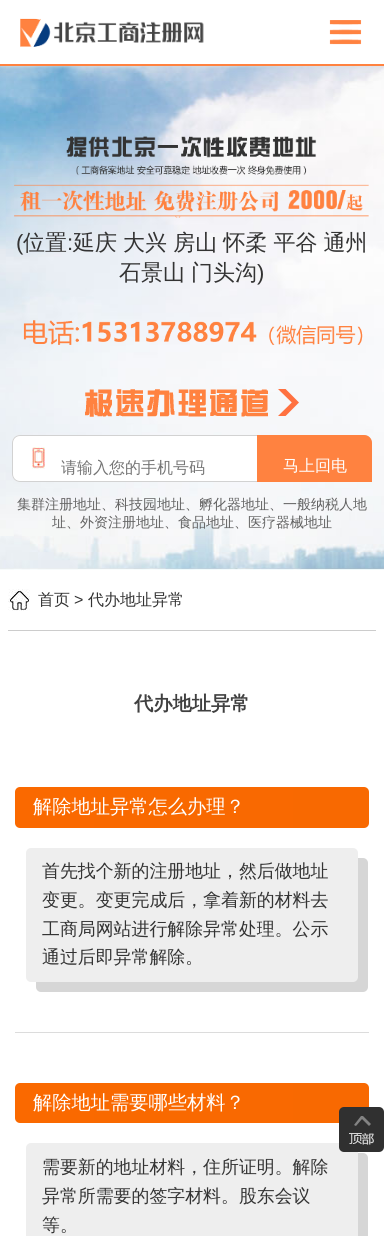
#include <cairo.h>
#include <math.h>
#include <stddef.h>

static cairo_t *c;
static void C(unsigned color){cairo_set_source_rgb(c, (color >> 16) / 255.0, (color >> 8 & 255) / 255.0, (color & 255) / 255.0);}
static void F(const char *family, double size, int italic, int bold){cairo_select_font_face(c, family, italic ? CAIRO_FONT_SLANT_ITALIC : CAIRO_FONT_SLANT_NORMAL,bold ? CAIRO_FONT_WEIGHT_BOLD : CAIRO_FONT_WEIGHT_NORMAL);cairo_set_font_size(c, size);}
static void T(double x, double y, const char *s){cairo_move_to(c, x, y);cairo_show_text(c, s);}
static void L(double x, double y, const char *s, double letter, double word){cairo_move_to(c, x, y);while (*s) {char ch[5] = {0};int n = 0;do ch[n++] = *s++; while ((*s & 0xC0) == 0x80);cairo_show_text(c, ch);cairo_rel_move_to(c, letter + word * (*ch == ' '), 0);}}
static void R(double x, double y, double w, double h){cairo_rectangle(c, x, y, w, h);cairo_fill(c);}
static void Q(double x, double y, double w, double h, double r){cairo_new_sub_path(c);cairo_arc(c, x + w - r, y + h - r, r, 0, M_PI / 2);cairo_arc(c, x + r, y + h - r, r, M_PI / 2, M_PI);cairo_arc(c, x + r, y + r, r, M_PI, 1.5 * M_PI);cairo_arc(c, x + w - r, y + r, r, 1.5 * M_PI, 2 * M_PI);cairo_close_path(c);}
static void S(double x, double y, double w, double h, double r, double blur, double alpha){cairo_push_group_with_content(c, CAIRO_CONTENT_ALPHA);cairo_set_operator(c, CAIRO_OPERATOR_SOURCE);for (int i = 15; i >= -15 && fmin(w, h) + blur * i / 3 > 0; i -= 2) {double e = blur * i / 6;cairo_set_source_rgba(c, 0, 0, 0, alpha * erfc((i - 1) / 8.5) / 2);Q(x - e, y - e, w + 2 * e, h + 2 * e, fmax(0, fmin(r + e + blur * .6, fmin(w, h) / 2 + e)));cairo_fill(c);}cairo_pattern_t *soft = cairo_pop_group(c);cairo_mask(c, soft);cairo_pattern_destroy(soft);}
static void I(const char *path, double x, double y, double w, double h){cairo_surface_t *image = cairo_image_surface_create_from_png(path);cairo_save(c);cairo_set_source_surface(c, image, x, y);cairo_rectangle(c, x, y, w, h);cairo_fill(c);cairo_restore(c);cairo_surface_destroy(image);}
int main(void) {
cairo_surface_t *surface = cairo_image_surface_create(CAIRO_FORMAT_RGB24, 384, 1236);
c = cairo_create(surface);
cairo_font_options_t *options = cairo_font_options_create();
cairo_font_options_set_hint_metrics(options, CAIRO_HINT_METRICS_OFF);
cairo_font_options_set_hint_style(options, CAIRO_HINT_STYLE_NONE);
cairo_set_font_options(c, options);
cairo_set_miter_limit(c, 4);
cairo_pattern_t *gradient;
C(0xffffff);
cairo_paint(c);
I("3.png",0,66,384,504);
C(0xdfdfdf);
S(0,0,384,66,0,2,1);
C(0xffffff);
R(0,0,384,64);
C(0xff8240);
R(0,64,384,2);
I("1.png",20,18,184,29);
I("2.png",329,20,33,25);
I("4.png",14,136,355,82);
F("Liberation Sans",22,0,0);
C(0x333333);
T(16,250,"(");
F("WenQuanYi Zen Hei Medium",22,0,0);
T(23,250,"位置");
F("Liberation Sans",22,0,0);
T(67,250,":");
F("WenQuanYi Zen Hei Medium",22,0,0);
L(73,250,"延庆 大兴 房山 怀柔 平谷 通州",0,-.5);
L(119,280,"石景山 门头沟",0,-.5);
F("Liberation Sans",22,0,0);
T(257,280,")");
I("5.png",23,320,340,25);
I("6.png",85,389,214,28);
C(0xffffff);
Q(12,435,360,47,8);
cairo_fill(c);
I("7.png",32,447,13,22);
Q(12.5,435.5,359,46,7.5);
C(0xd2d2d2);
cairo_set_line_width(c,1);
cairo_stroke(c);
F("WenQuanYi Zen Hei Medium",16,0,0);
C(0x757575);
T(61,473,"请输入您的手机号码");
C(0xff8240);
cairo_new_path(c);
cairo_move_to(c,257,435);
cairo_line_to(c,364,435);
cairo_curve_to(c,368.5,435,372,438.5,372,443);
cairo_line_to(c,372,482);
cairo_line_to(c,257,482);
cairo_close_path(c);
cairo_fill(c);
C(0xffffff);
T(283,471,"马上回电");
F("WenQuanYi Zen Hei Medium",14,0,0);
C(0x626262);
T(17,509,"集群注册地址、科技园地址、孵化器地址、一般纳税人地");
T(52,527,"址、外资注册地址、食品地址、医疗器械地址");
C(0xcccccc);
R(8,630,368,1);
I("8.png",8,589,22,22);
F("WenQuanYi Zen Hei Medium",16,0,0);
C(0x333333);
T(38,605,"首页");
F("Liberation Sans",16,0,0);
T(74,605,">");
F("WenQuanYi Zen Hei Medium",16,0,0);
T(88,605,"代办地址异常");
F("WenQuanYi Zen Hei",19.25,0,1);
C(0x404040);
T(134,710,"代办地址异常");
C(0xdcdcdc);
R(15,1032,354,1);
gradient = cairo_pattern_create_linear(15,787,369,787);
cairo_pattern_add_color_stop_rgba(gradient,0,0.98,0.412,0,1);
cairo_pattern_add_color_stop_rgba(gradient,1,0.973,0.412,0.004,1);
cairo_set_source(c,gradient);
cairo_pattern_destroy(gradient);
Q(15,787,354,41,5);
cairo_fill(c);
F("WenQuanYi Zen Hei Medium",19.25,0,0);
C(0xffffff);
T(33,813,"解除地址异常怎么办理？");
C(0xd6d6d6);
Q(36,858,332,134,5);
cairo_fill(c);
C(0xeeeeee);
Q(26,848,332,134,5);
cairo_fill(c);
F("WenQuanYi Zen Hei Medium",17.9,0,0);
C(0x333333);
T(42,877,"首先找个新的注册地址，然后做地址");
T(42,906,"变更。变更完成后，拿着新的材料去");
T(42,935,"工商局网站进行解除异常处理。公示");
T(42,963,"通过后即异常解除。");
gradient = cairo_pattern_create_linear(15,1083,369,1083);
cairo_pattern_add_color_stop_rgba(gradient,0,0.98,0.412,0,1);
cairo_pattern_add_color_stop_rgba(gradient,1,0.973,0.412,0.004,1);
cairo_set_source(c,gradient);
cairo_pattern_destroy(gradient);
Q(15,1083,354,40,5);
cairo_fill(c);
F("WenQuanYi Zen Hei Medium",19.25,0,0);
C(0xffffff);
T(33,1109,"解除地址需要哪些材料？");
C(0xd6d6d6);
Q(36,1153,332,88,5);
cairo_fill(c);
C(0xeeeeee);
Q(26,1143,332,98,5);
cairo_fill(c);
F("WenQuanYi Zen Hei Medium",17.9,0,0);
C(0x333333);
T(42,1173,"需要新的地址材料，住所证明。解除");
T(42,1202,"异常所需要的签字材料。股东会议");
T(42,1231,"等。");
C(0x303030);
Q(339,1107,45,45,5);
cairo_fill(c);
I("9.png",349,1116,25,29);
cairo_surface_write_to_png(surface, "o.png");
cairo_font_options_destroy(options);
cairo_destroy(c);
cairo_surface_destroy(surface);
return 0;
}
